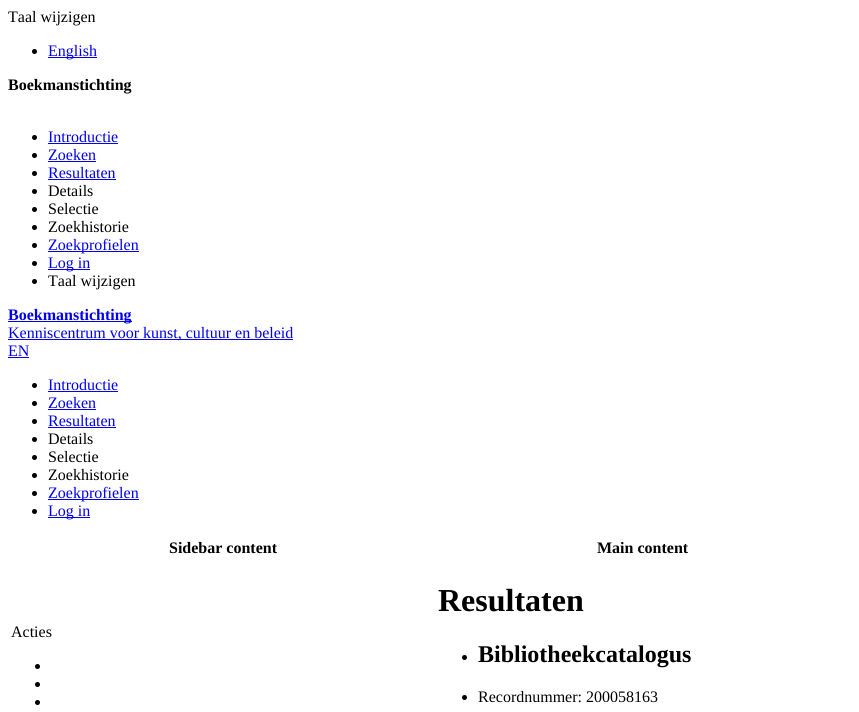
#include <cairo.h>
#include <math.h>
#include <stddef.h>

static cairo_t *c;
static void C(unsigned color){cairo_set_source_rgb(c, (color >> 16) / 255.0, (color >> 8 & 255) / 255.0, (color & 255) / 255.0);}
static void F(const char *family, double size, int italic, int bold){cairo_select_font_face(c, family, italic ? CAIRO_FONT_SLANT_ITALIC : CAIRO_FONT_SLANT_NORMAL,bold ? CAIRO_FONT_WEIGHT_BOLD : CAIRO_FONT_WEIGHT_NORMAL);cairo_set_font_size(c, size);}
static void T(double x, double y, const char *s){cairo_move_to(c, x, y);cairo_show_text(c, s);}
static void R(double x, double y, double w, double h){cairo_rectangle(c, x, y, w, h);cairo_fill(c);}
int main(void) {
cairo_surface_t *surface = cairo_image_surface_create(CAIRO_FORMAT_RGB24, 859, 712);
c = cairo_create(surface);
cairo_font_options_t *options = cairo_font_options_create();
cairo_font_options_set_hint_metrics(options, CAIRO_HINT_METRICS_OFF);
cairo_font_options_set_hint_style(options, CAIRO_HINT_STYLE_NONE);
cairo_set_font_options(c, options);
cairo_set_miter_limit(c, 4);
C(0xffffff);
cairo_paint(c);
F("Liberation Serif",16,0,0);
C(0x000000);
T(8,22,"Taal wijzigen");
cairo_new_path(c);
cairo_arc(c,34.5,51.5,2.5,0,2 * M_PI);
cairo_fill(c);
C(0x0000ee);
R(48,57,49,1);
T(48,56,"English");
F("Liberation Serif",16,0,1);
C(0x000000);
T(8,90,"Boekmanstichting");
cairo_new_path(c);
cairo_arc(c,34.5,137.5,2.5,0,2 * M_PI);
cairo_fill(c);
F("Liberation Serif",16,0,0);
C(0x0000ee);
T(48,142,"Introductie");
R(48,143,70,1);
C(0x000000);
cairo_new_path(c);
cairo_arc(c,34.5,155.5,2.5,0,2 * M_PI);
cairo_fill(c);
C(0x0000ee);
T(48,160,"Zoeken");
R(48,161,48,1);
C(0x000000);
cairo_new_path(c);
cairo_arc(c,34.5,173.5,2.5,0,2 * M_PI);
cairo_fill(c);
C(0x0000ee);
T(48,178,"Resultaten");
R(48,179,68,1);
C(0x000000);
cairo_new_path(c);
cairo_arc(c,34.5,191.5,2.5,0,2 * M_PI);
cairo_fill(c);
T(48,196,"Details");
cairo_new_path(c);
cairo_arc(c,34.5,209.5,2.5,0,2 * M_PI);
cairo_fill(c);
T(48,214,"Selectie");
cairo_new_path(c);
cairo_arc(c,34.5,227.5,2.5,0,2 * M_PI);
cairo_fill(c);
T(48,232,"Zoekhistorie");
cairo_new_path(c);
cairo_arc(c,34.5,245.5,2.5,0,2 * M_PI);
cairo_fill(c);
C(0x0000ee);
R(48,251,91,1);
T(48,250,"Zoekprofielen");
C(0x000000);
cairo_new_path(c);
cairo_arc(c,34.5,263.5,2.5,0,2 * M_PI);
cairo_fill(c);
C(0x0000ee);
R(48,269,42,1);
T(48,268,"Log in");
C(0x000000);
cairo_new_path(c);
cairo_arc(c,34.5,281.5,2.5,0,2 * M_PI);
cairo_fill(c);
T(48,286,"Taal wijzigen");
C(0x0000ee);
R(8,321,124,1);
F("Liberation Serif",16,0,1);
T(8,320,"Boekmanstichting");
R(8,339,285,1);
F("Liberation Serif",16,0,0);
T(8,338,"Kenniscentrum voor kunst, cultuur en beleid");
T(8,356,"EN");
R(8,357,21,1);
C(0x000000);
cairo_new_path(c);
cairo_arc(c,34.5,385.5,2.5,0,2 * M_PI);
cairo_fill(c);
C(0x0000ee);
T(48,390,"Introductie");
R(48,391,70,1);
C(0x000000);
cairo_new_path(c);
cairo_arc(c,34.5,403.5,2.5,0,2 * M_PI);
cairo_fill(c);
C(0x0000ee);
T(48,408,"Zoeken");
R(48,409,48,1);
C(0x000000);
cairo_new_path(c);
cairo_arc(c,34.5,421.5,2.5,0,2 * M_PI);
cairo_fill(c);
C(0x0000ee);
T(48,426,"Resultaten");
R(48,427,68,1);
C(0x000000);
cairo_new_path(c);
cairo_arc(c,34.5,439.5,2.5,0,2 * M_PI);
cairo_fill(c);
T(48,444,"Details");
cairo_new_path(c);
cairo_arc(c,34.5,457.5,2.5,0,2 * M_PI);
cairo_fill(c);
T(48,462,"Selectie");
cairo_new_path(c);
cairo_arc(c,34.5,475.5,2.5,0,2 * M_PI);
cairo_fill(c);
T(48,480,"Zoekhistorie");
cairo_new_path(c);
cairo_arc(c,34.5,493.5,2.5,0,2 * M_PI);
cairo_fill(c);
C(0x0000ee);
R(48,499,91,1);
T(48,498,"Zoekprofielen");
C(0x000000);
cairo_new_path(c);
cairo_arc(c,34.5,511.5,2.5,0,2 * M_PI);
cairo_fill(c);
C(0x0000ee);
R(48,517,42,1);
T(48,516,"Log in");
F("Liberation Serif",16,0,1);
C(0x000000);
T(169,553,"Sidebar content");
T(597,553,"Main content");
F("Liberation Serif",16,0,0);
T(11,637,"Acties");
cairo_new_path(c);
cairo_arc(c,37.5,666.5,2.5,0,2 * M_PI);
cairo_fill(c);
cairo_arc(c,37.5,684.5,2.5,0,2 * M_PI);
cairo_fill(c);
cairo_arc(c,37.5,702.5,2.5,0,2 * M_PI);
cairo_fill(c);
F("Liberation Serif",32,0,1);
T(438,611,"Resultaten");
cairo_new_path(c);
cairo_arc(c,464.5,657.5,2.5,0,2 * M_PI);
cairo_fill(c);
F("Liberation Serif",24,0,1);
T(478,662,"Bibliotheekcatalogus");
cairo_new_path(c);
cairo_arc(c,464.5,697.5,2.5,0,2 * M_PI);
cairo_fill(c);
F("Liberation Serif",16,0,0);
T(478,702,"Recordnummer: 200058163");
cairo_surface_write_to_png(surface, "o.png");
cairo_font_options_destroy(options);
cairo_destroy(c);
cairo_surface_destroy(surface);
return 0;
}
